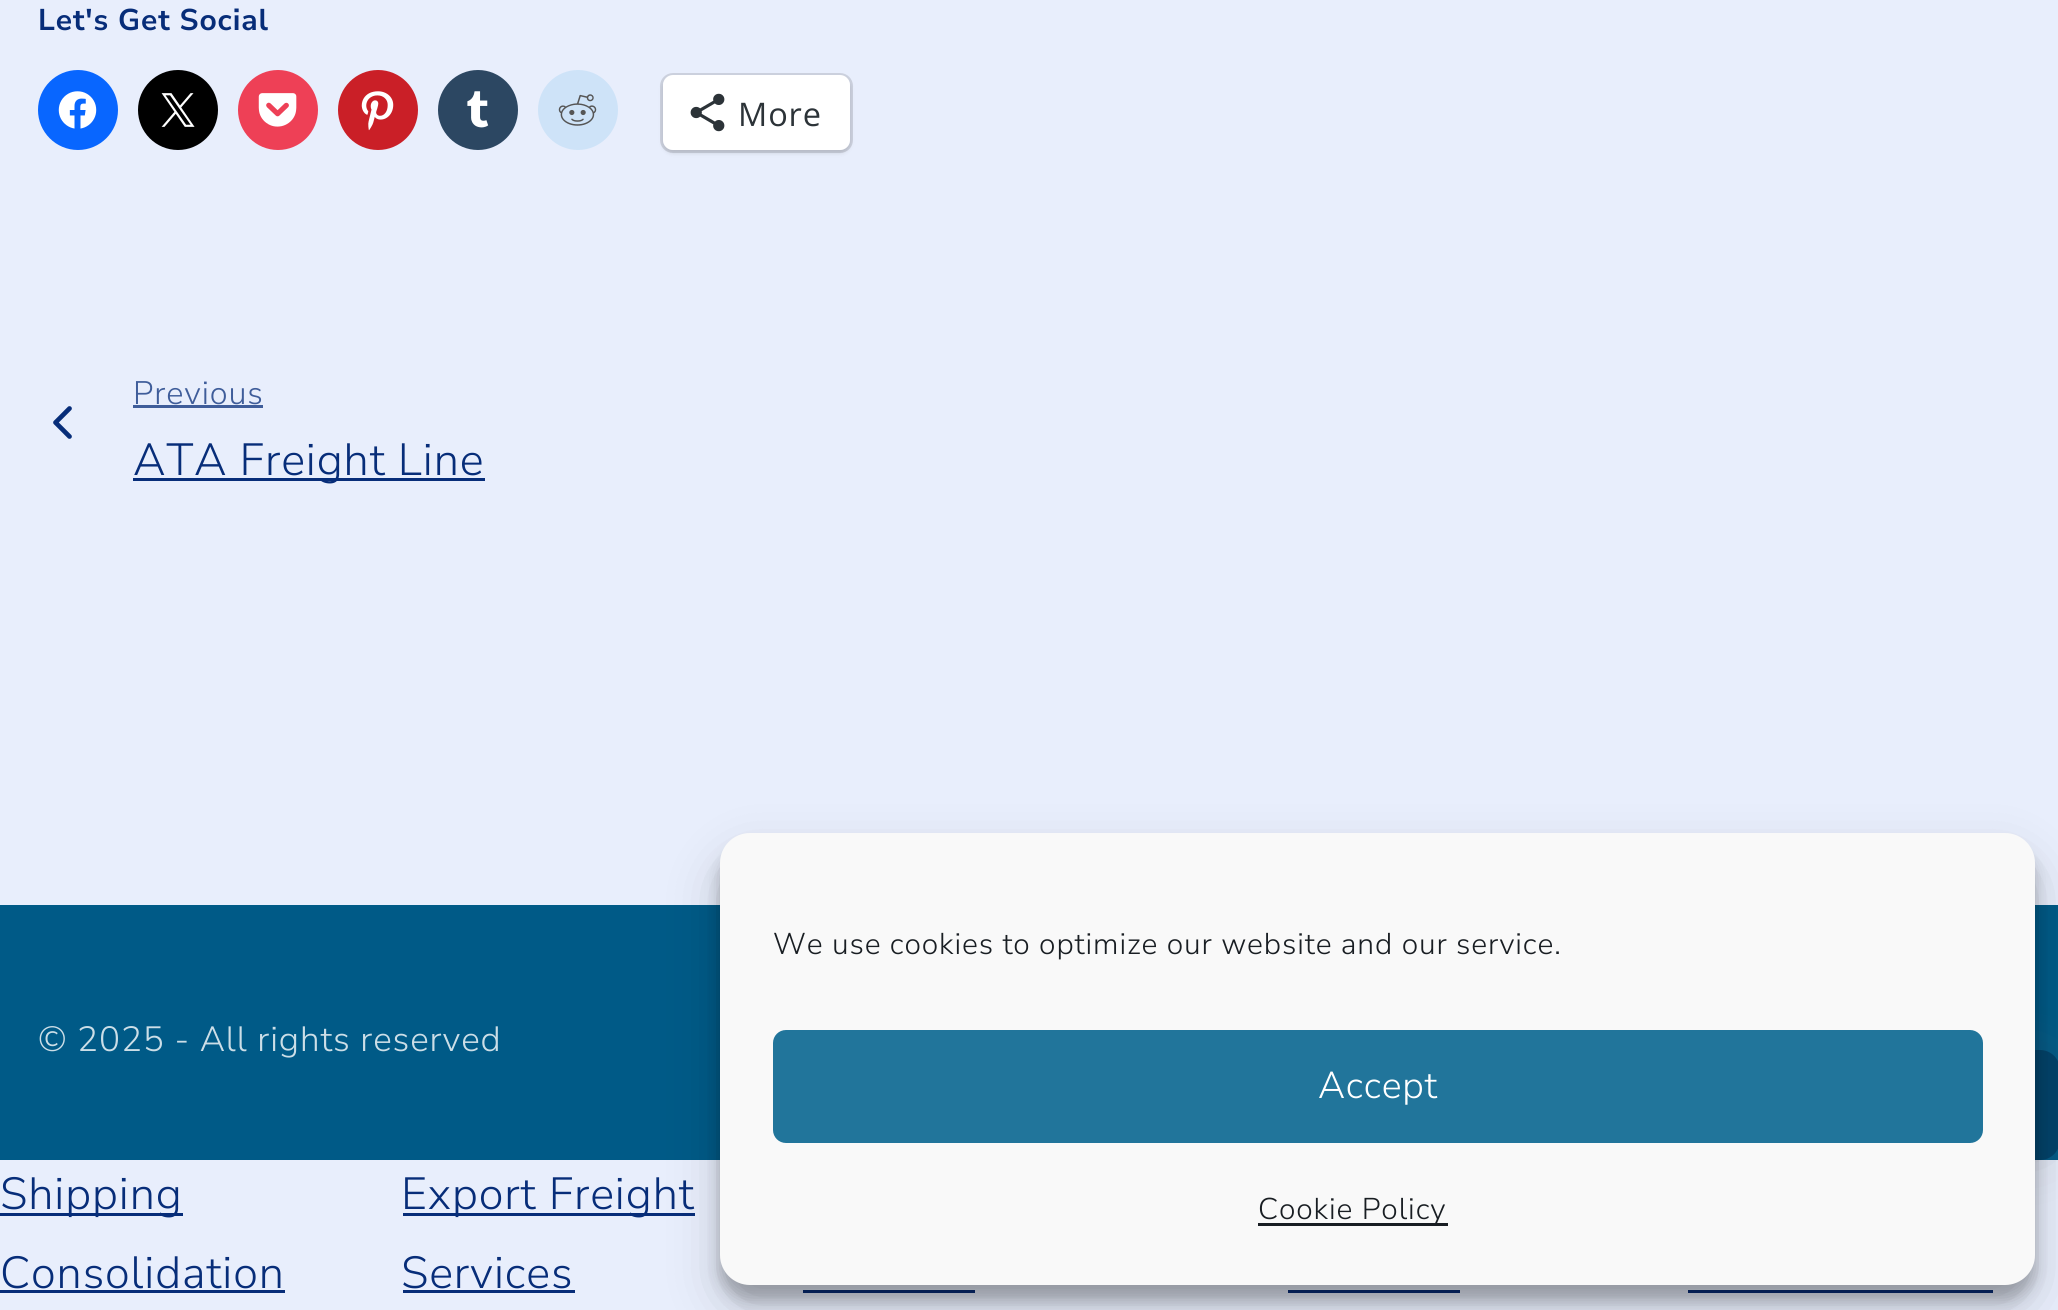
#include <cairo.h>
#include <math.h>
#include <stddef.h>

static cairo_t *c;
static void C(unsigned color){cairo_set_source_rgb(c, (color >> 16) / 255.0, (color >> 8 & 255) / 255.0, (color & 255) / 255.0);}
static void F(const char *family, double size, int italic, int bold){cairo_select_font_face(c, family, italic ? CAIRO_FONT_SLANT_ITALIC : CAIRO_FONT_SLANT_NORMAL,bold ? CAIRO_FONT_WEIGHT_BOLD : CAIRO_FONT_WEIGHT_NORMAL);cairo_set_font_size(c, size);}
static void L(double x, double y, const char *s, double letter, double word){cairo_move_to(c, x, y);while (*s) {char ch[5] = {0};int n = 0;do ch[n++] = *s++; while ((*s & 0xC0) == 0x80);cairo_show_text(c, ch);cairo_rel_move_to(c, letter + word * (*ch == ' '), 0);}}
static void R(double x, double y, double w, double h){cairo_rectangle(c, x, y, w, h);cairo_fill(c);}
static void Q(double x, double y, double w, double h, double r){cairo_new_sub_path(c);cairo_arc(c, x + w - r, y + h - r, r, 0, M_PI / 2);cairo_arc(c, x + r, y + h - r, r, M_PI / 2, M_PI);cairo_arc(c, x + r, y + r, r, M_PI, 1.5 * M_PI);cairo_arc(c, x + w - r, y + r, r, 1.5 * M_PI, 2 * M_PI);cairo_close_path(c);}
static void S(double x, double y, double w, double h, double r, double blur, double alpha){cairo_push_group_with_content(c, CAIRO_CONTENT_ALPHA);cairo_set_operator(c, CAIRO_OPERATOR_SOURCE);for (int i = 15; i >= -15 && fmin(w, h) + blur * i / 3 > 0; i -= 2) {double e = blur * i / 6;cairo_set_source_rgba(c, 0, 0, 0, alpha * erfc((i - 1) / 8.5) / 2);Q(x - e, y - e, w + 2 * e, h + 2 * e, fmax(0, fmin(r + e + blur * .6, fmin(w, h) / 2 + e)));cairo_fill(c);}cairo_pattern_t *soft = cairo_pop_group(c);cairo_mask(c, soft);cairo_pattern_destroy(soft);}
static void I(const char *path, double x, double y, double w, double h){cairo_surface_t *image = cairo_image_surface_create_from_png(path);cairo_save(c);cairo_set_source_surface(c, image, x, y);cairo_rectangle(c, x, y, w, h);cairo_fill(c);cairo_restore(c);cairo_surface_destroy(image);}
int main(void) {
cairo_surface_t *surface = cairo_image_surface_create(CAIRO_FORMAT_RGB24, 2058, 1310);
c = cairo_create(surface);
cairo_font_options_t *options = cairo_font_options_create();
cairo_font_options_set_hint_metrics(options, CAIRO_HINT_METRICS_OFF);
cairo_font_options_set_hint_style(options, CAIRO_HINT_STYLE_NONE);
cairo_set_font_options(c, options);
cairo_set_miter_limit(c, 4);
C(0xe8eefc);
cairo_paint(c);
F("Nunito Sans",30,0,1);
C(0x072d79);
L(38,30,"Let's Get Social",.9,0);
C(0x0866ff);
cairo_new_path(c);
cairo_arc(c,78,110,40,0,2 * M_PI);
cairo_fill(c);
I("1.png",58,91,39,38);
C(0x000000);
cairo_arc(c,178,110,40,0,2 * M_PI);
cairo_fill(c);
I("2.png",161,93,34,34);
C(0xee4056);
cairo_arc(c,278,110,40,0,2 * M_PI);
cairo_fill(c);
I("3.png",258,93,39,34);
C(0xca1f27);
cairo_arc(c,378,110,40,0,2 * M_PI);
cairo_fill(c);
I("4.png",361,91,33,40);
C(0x2c4762);
cairo_arc(c,478,110,40,0,2 * M_PI);
cairo_fill(c);
I("5.png",467,91,22,37);
C(0xcee3f8);
cairo_arc(c,578,110,40,0,2 * M_PI);
cairo_fill(c);
I("6.png",558,94,39,32);
Q(661.5,74.5,190,77,11.5);
C(0xccd1de);
cairo_set_line_width(c,3);
cairo_stroke(c);
C(0x000000);
S(663,78,187,75,10,2.5,.12);
C(0xffffff);
Q(663,75,187,75,10);
cairo_fill(c);
I("7.png",690,93,35,39);
F("Open Sans",32.5,0,0);
C(0x2c3338);
L(738,126,"More",.9,0);
cairo_new_path(c);
cairo_move_to(c,69.5,408.5);
cairo_line_to(c,55.5,422.5);
cairo_line_to(c,69.5,436.5);
C(0x072d79);
cairo_set_line_width(c,4.7);
cairo_set_line_cap(c,CAIRO_LINE_CAP_ROUND);
cairo_set_line_join(c,CAIRO_LINE_JOIN_ROUND);
cairo_stroke(c);
F("Nunito Sans Light",32.5,0,0);
C(0x3f5d9a);
L(133,404,"Previous",.9,0);
R(133,405,130,3);
C(0x072d79);
R(133,478,352,3);
F("Nunito Sans Light",45,0,0);
L(133,475,"ATA Freight Line",.9,0);
C(0x005a87);
R(0,905,2058,255);
F("Nunito Sans Light",35,0,0);
C(0xccdee7);
L(38,1051,"© 2025 - All rights reserved",.9,0);
C(0x072d79);
R(0,1213,183,3);
F("Nunito Sans Light",45,0,0);
L(0,1209,"Shipping",.9,0);
L(0,1288,"Consolidation",.9,0);
R(0,1290,285,3);
R(403,1213,292,3);
L(401,1209,"Export Freight",.9,0);
L(401,1288,"Services",.9,0);
R(403,1290,172,3);
R(803,1290,172,3);
R(1288,1290,172,3);
R(1688,1290,305,3);
C(0x646464);
S(1950,1050,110,110,20,25,.15);
C(0x024269);
Q(1950,1050,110,110,20);
cairo_fill(c);
C(0x000000);
S(720,848,1315,452,30,7.5,.23);
S(720,858,1315,452,30,25,.19);
C(0xf9f9f9);
Q(721.5,834.5,1312,449,28.5);
cairo_fill_preserve(c);
cairo_set_line_width(c,3);
cairo_set_line_cap(c,CAIRO_LINE_CAP_BUTT);
cairo_set_line_join(c,CAIRO_LINE_JOIN_MITER);
cairo_stroke(c);
F("Nunito Sans Light",30,0,0);
C(0x191e23);
L(773,954,"We use cookies to optimize our website and our service.",.9,0);
C(0x21759b);
Q(774.5,1031.5,1207,110,11.5);
cairo_fill_preserve(c);
cairo_stroke(c);
F("Nunito Sans Light",37.5,0,0);
C(0xffffff);
L(1318,1098,"Accept",.75,0);
C(0x191e23);
R(1258,1223,190,3);
F("Nunito Sans Light",30,0,0);
L(1258,1219,"Cookie Policy",.9,0);
cairo_surface_write_to_png(surface, "o.png");
cairo_font_options_destroy(options);
cairo_destroy(c);
cairo_surface_destroy(surface);
return 0;
}
